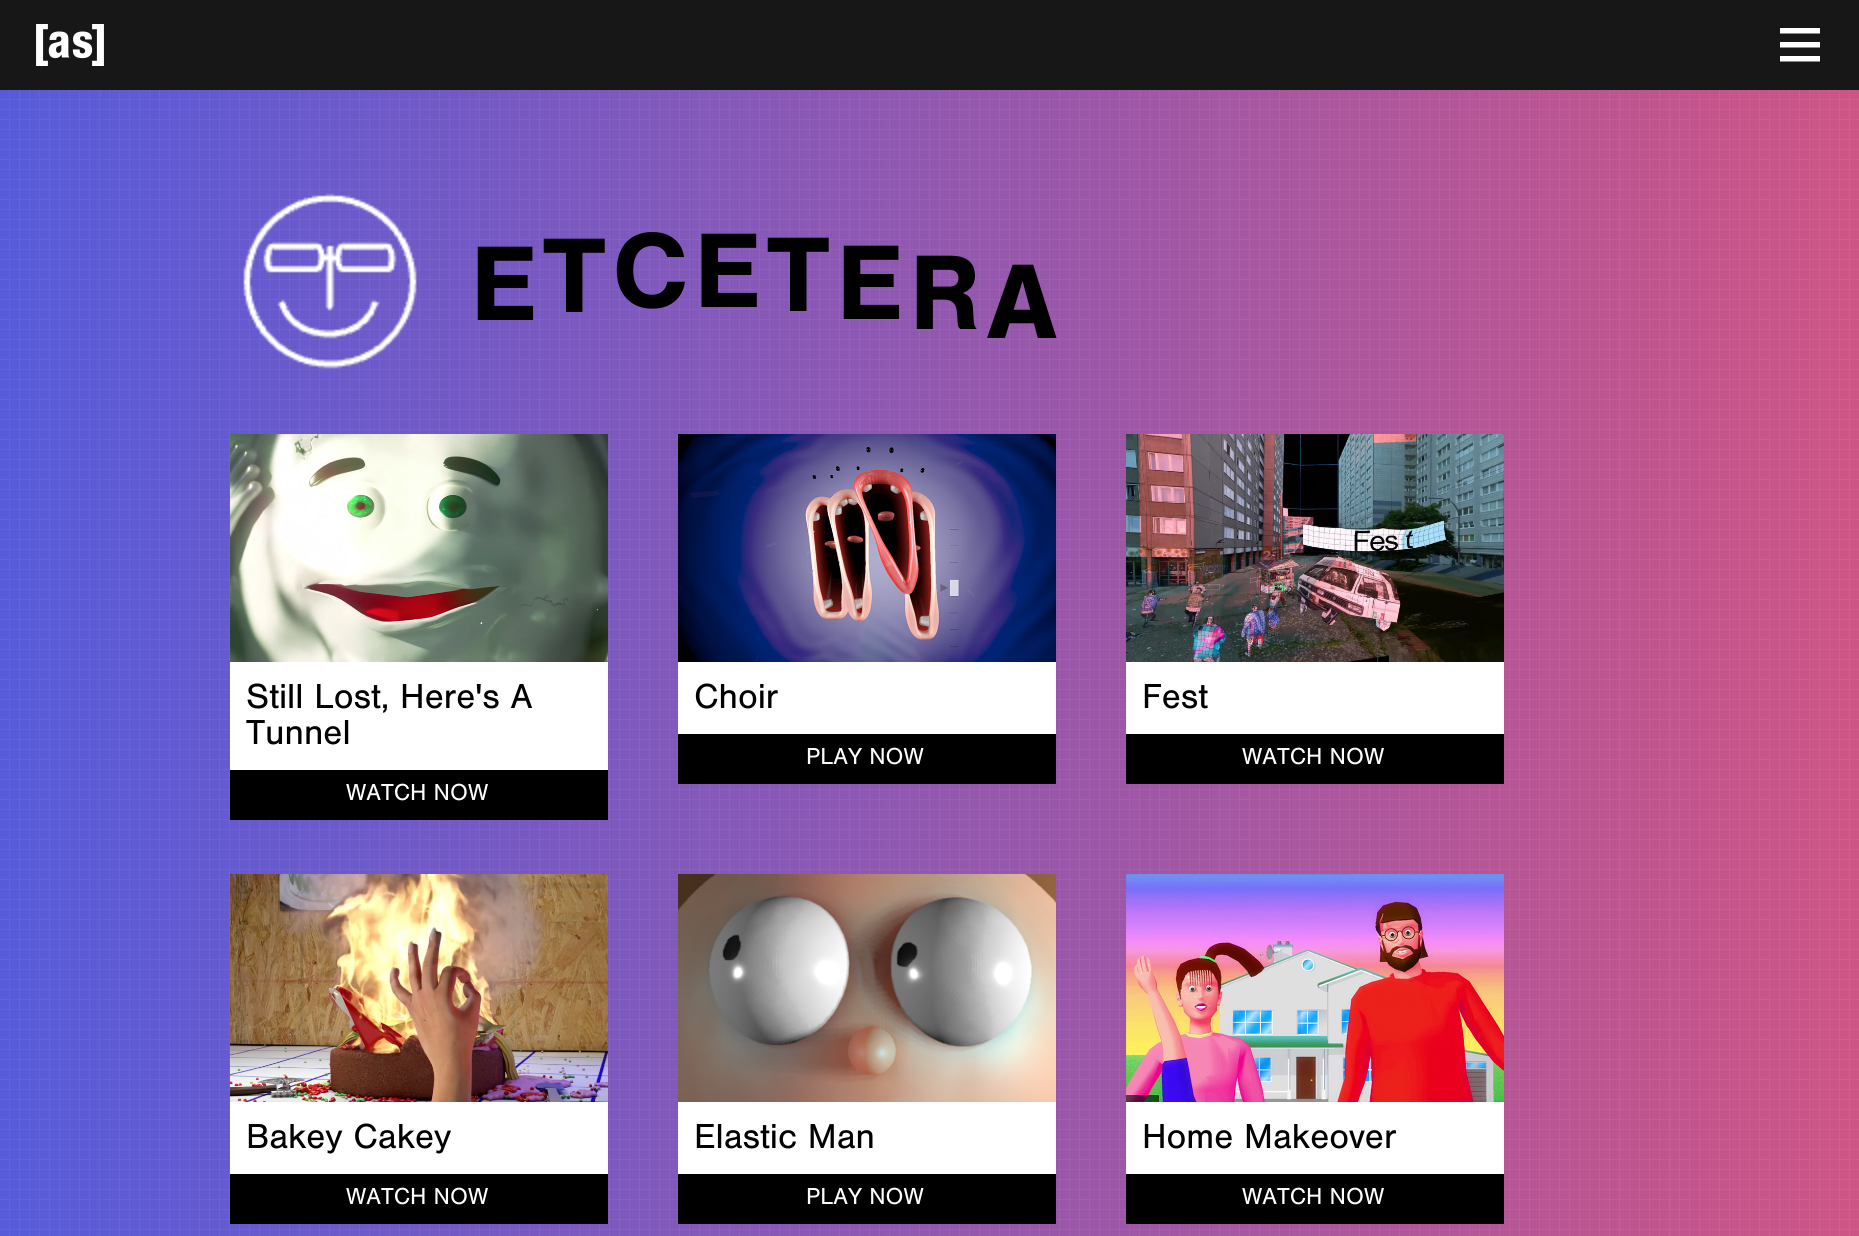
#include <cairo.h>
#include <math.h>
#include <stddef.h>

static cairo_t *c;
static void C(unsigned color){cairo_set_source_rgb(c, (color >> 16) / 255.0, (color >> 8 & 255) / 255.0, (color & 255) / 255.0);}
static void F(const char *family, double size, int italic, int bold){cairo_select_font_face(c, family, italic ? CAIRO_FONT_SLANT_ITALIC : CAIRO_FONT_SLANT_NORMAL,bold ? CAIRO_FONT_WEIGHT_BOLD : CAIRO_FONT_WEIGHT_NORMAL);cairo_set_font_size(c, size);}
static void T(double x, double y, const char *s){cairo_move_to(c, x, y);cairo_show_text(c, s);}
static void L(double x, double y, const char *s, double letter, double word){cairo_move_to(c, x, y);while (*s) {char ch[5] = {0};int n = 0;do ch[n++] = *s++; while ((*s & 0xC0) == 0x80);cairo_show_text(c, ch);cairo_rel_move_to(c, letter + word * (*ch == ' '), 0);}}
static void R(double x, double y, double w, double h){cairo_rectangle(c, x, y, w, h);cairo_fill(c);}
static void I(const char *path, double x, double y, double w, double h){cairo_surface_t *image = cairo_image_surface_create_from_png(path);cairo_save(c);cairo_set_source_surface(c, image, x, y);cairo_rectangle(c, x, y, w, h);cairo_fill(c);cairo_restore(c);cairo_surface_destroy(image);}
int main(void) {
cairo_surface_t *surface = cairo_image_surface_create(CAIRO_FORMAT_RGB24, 1859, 1236);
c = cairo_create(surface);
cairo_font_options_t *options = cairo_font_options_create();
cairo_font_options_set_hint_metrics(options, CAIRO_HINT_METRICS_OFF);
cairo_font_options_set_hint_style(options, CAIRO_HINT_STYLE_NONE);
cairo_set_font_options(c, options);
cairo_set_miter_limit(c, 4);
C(0xffffff);
cairo_paint(c);
I("1.png",0,90,1859,1146);
C(0x171717);
R(0,0,1859,90);
I("2.png",36,24,68,42);
C(0xffffff);
cairo_set_fill_rule(c,CAIRO_FILL_RULE_EVEN_ODD);
cairo_new_path(c);
cairo_move_to(c,1780,28);
cairo_line_to(c,1820,28);
cairo_line_to(c,1820,33.5);
cairo_line_to(c,1780,33.5);
cairo_close_path(c);
cairo_move_to(c,1780,42);
cairo_line_to(c,1820,42);
cairo_line_to(c,1820,47.5);
cairo_line_to(c,1780,47.5);
cairo_close_path(c);
cairo_move_to(c,1780,56);
cairo_line_to(c,1820,56);
cairo_line_to(c,1820,61.5);
cairo_line_to(c,1780,61.5);
cairo_close_path(c);
cairo_fill(c);
I("3.png",243,193,174,176);
F("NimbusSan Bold",110,0,1);
C(0x000000);
L(470,320,"E",6,0);
L(543,312,"T",6,0);
L(612,307,"CE",6,0);
L(767,311,"T",6,0);
L(836,319,"E",6,0);
L(909,329,"R",6,0);
L(987,338,"A",6,0);
I("4.png",230,434,378,228);
C(0xffffff);
R(230,662,378,108);
F("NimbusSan",36,0,0);
C(0x000000);
T(246,708,"Still Lost, Here's A");
T(246,744,"Tunnel");
R(230,770,378,50);
F("NimbusSan",24,0,0);
C(0xffffff);
T(346,800,"WATCH NOW");
I("5.png",678,434,378,228);
R(678,662,378,72);
F("NimbusSan",36,0,0);
C(0x000000);
T(694,708,"Choir");
R(678,734,378,50);
F("NimbusSan",24,0,0);
C(0xffffff);
T(806,764,"PLAY NOW");
I("6.png",1126,434,378,228);
R(1126,662,378,72);
F("NimbusSan",36,0,0);
C(0x000000);
T(1142,708,"Fest");
R(1126,734,378,50);
F("NimbusSan",24,0,0);
C(0xffffff);
T(1242,764,"WATCH NOW");
I("7.png",230,874,378,228);
R(230,1102,378,72);
F("NimbusSan",36,0,0);
C(0x000000);
T(246,1148,"Bakey Cakey");
R(230,1174,378,50);
F("NimbusSan",24,0,0);
C(0xffffff);
T(346,1204,"WATCH NOW");
I("8.png",678,874,378,228);
R(678,1102,378,72);
F("NimbusSan",36,0,0);
C(0x000000);
T(694,1148,"Elastic Man");
R(678,1174,378,50);
F("NimbusSan",24,0,0);
C(0xffffff);
T(806,1204,"PLAY NOW");
I("9.png",1126,874,378,228);
R(1126,1102,378,72);
F("NimbusSan",36,0,0);
C(0x000000);
T(1142,1148,"Home Makeover");
R(1126,1174,378,50);
F("NimbusSan",24,0,0);
C(0xffffff);
T(1242,1204,"WATCH NOW");
cairo_surface_write_to_png(surface, "o.png");
cairo_font_options_destroy(options);
cairo_destroy(c);
cairo_surface_destroy(surface);
return 0;
}
